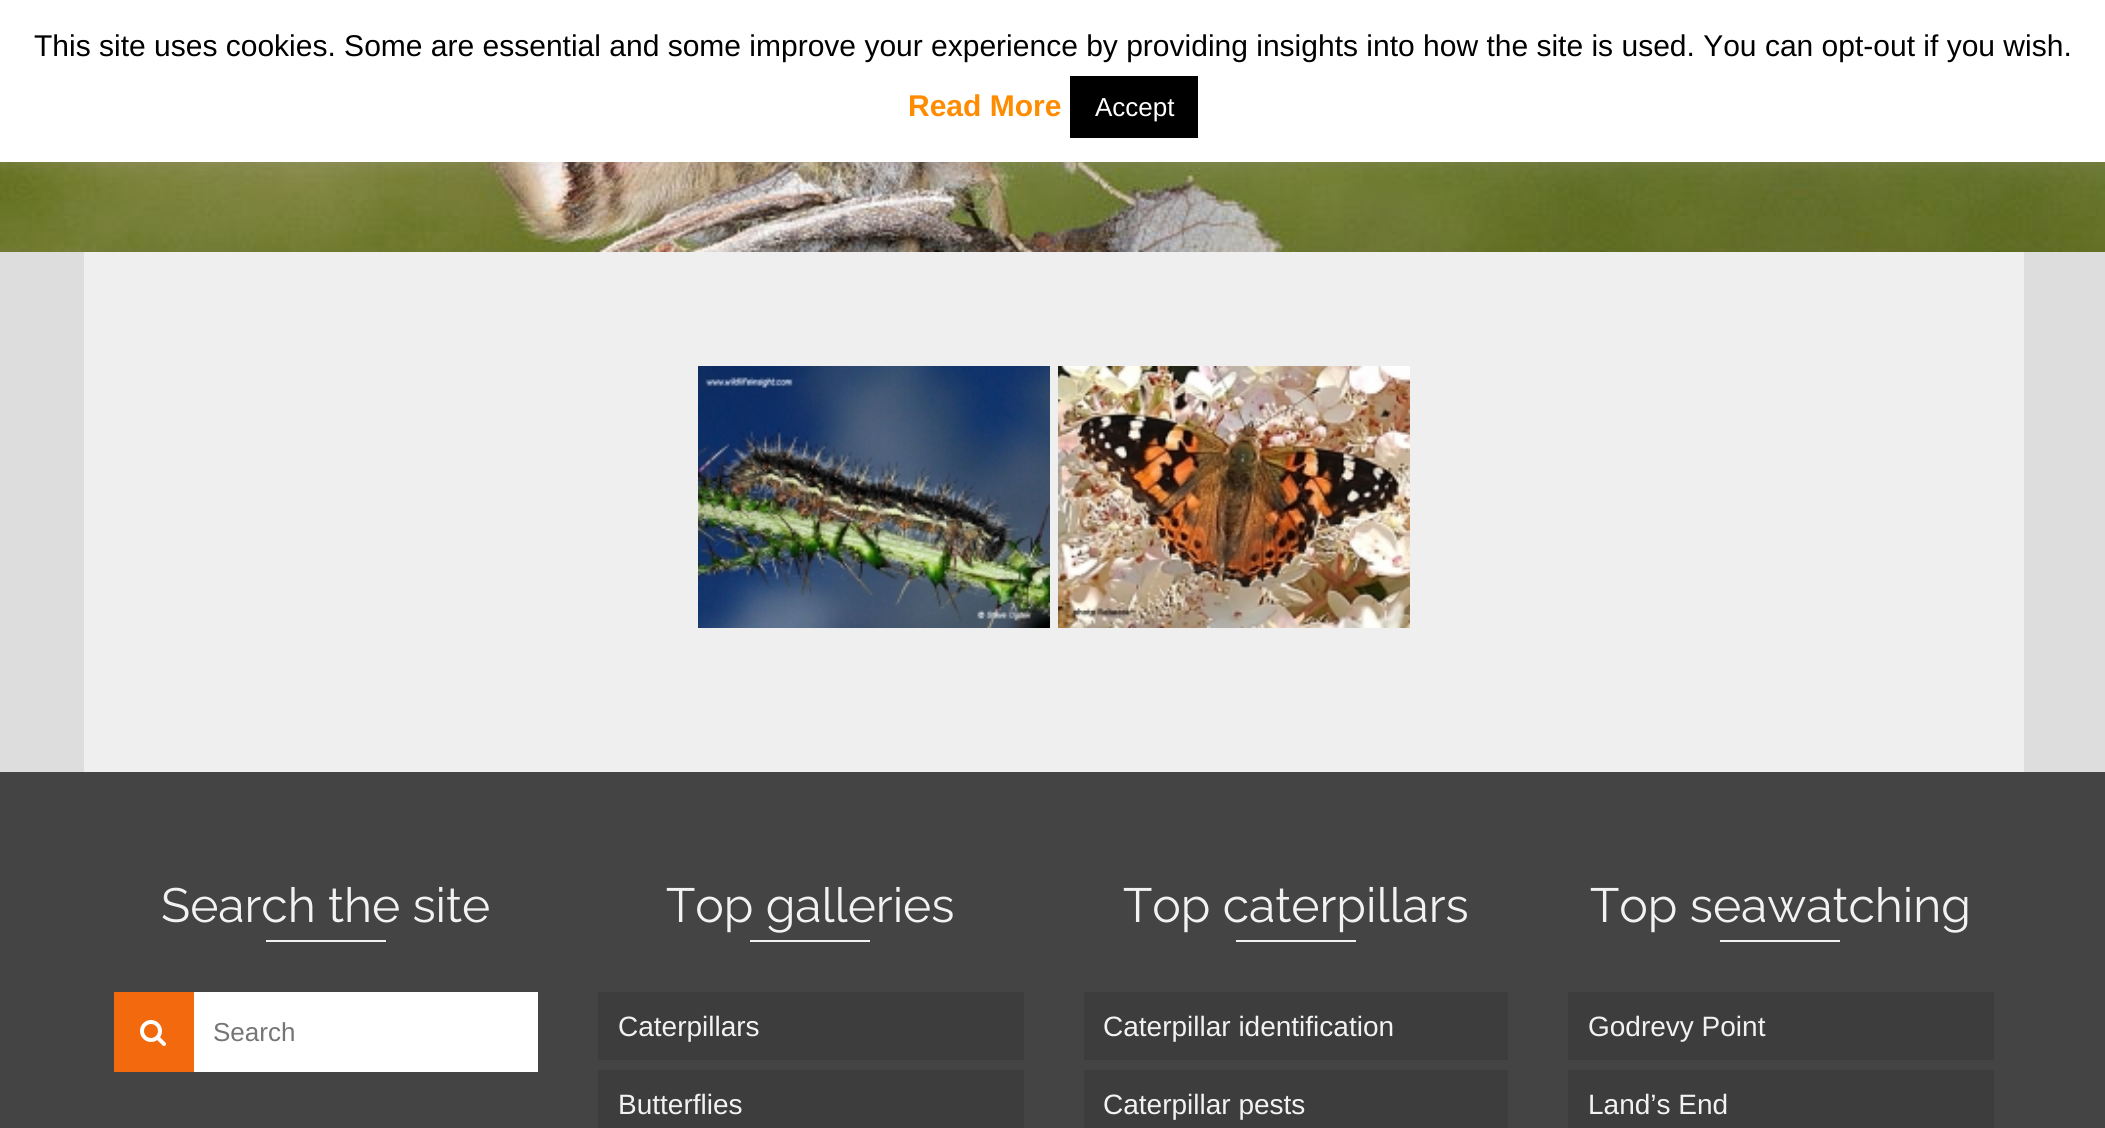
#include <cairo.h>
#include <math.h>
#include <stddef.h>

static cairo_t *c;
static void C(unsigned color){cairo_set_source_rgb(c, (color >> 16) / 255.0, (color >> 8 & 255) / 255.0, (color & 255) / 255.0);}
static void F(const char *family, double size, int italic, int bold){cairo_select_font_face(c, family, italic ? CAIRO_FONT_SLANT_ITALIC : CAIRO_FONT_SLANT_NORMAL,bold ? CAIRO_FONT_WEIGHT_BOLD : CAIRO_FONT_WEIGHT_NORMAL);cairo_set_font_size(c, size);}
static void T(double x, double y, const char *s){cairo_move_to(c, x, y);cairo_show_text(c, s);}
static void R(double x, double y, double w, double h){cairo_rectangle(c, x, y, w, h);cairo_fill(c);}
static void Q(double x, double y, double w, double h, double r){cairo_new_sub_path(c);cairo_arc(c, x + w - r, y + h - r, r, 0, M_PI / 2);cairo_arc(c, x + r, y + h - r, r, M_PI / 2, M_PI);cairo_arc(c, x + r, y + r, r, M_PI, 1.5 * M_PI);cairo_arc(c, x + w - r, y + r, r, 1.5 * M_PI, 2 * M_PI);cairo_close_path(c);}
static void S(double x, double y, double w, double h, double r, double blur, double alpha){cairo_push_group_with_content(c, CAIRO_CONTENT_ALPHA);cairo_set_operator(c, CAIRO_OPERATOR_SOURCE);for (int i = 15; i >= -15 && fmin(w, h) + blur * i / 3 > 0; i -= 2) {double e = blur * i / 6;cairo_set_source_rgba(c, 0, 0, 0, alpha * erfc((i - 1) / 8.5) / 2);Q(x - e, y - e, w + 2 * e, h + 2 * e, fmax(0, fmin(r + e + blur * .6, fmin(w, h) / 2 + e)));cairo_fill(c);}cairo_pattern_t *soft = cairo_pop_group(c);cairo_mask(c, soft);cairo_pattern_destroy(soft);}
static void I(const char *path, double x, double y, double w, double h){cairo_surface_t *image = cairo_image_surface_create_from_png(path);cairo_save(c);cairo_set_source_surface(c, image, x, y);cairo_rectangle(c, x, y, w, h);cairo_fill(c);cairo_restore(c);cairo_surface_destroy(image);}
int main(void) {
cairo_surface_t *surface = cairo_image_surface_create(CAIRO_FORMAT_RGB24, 2105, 1128);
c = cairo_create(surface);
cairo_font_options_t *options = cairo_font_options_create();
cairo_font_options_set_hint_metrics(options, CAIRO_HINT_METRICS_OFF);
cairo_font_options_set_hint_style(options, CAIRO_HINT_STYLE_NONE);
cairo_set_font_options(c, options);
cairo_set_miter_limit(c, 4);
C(0xdddddd);
cairo_paint(c);
I("1.png",0,162,2105,90);
C(0xacabab);
S(0,-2,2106,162,0,10,.3);
C(0xffffff);
R(0,0,2105,162);
F("Liberation Sans",30,0,0);
C(0x000000);
T(34,56,"This site uses cookies. Some are essential and some improve your experience by providing insights into how the site is used. You can opt-out if you wish.");
F("Liberation Sans",30,0,1);
C(0xff8c00);
T(908,116,"Read More");
C(0x000000);
R(1070,76,128,62);
F("Liberation Sans",26,0,0);
C(0xffffff);
T(1095,116,"Accept");
C(0xefefef);
R(84,252,1940,520);
I("2.png",698,366,352,262);
I("3.png",1058,366,352,262);
C(0x444444);
R(0,772,2105,356);
F("Raleway Thin",48,0,0);
C(0xf2f2f2);
T(161,922,"Search the site");
R(266,940,120,2);
C(0xf3690e);
R(114,992,80,80);
I("4.png",140,1020,26,26);
C(0xffffff);
R(194,992,344,80);
F("Liberation Sans",26,0,0);
C(0x757575);
T(213,1041,"Search");
F("Raleway Thin",48,0,0);
C(0xf2f2f2);
T(666,922,"Top galleries");
R(750,940,120,2);
C(0x3d3d3d);
R(598,992,426,68);
F("Liberation Sans",28,0,0);
C(0xf2f2f2);
T(618,1036,"Caterpillars");
C(0x3d3d3d);
R(598,1070,426,58);
C(0xf2f2f2);
T(618,1114,"Butterflies");
F("Raleway Thin",48,0,0);
T(1123,922,"Top caterpillars");
R(1236,940,120,2);
C(0x3d3d3d);
R(1084,992,424,68);
F("Liberation Sans",28,0,0);
C(0xf2f2f2);
T(1103,1036,"Caterpillar identification");
C(0x3d3d3d);
R(1084,1070,424,58);
C(0xf2f2f2);
T(1103,1114,"Caterpillar pests");
F("Raleway Thin",48,0,0);
T(1590,922,"Top seawatching");
R(1720,940,120,2);
C(0x3d3d3d);
R(1568,992,426,68);
F("Liberation Sans",28,0,0);
C(0xf2f2f2);
T(1588,1036,"Godrevy Point");
C(0x3d3d3d);
R(1568,1070,426,58);
C(0xf2f2f2);
T(1588,1114,"Land’s End");
cairo_surface_write_to_png(surface, "o.png");
cairo_font_options_destroy(options);
cairo_destroy(c);
cairo_surface_destroy(surface);
return 0;
}
